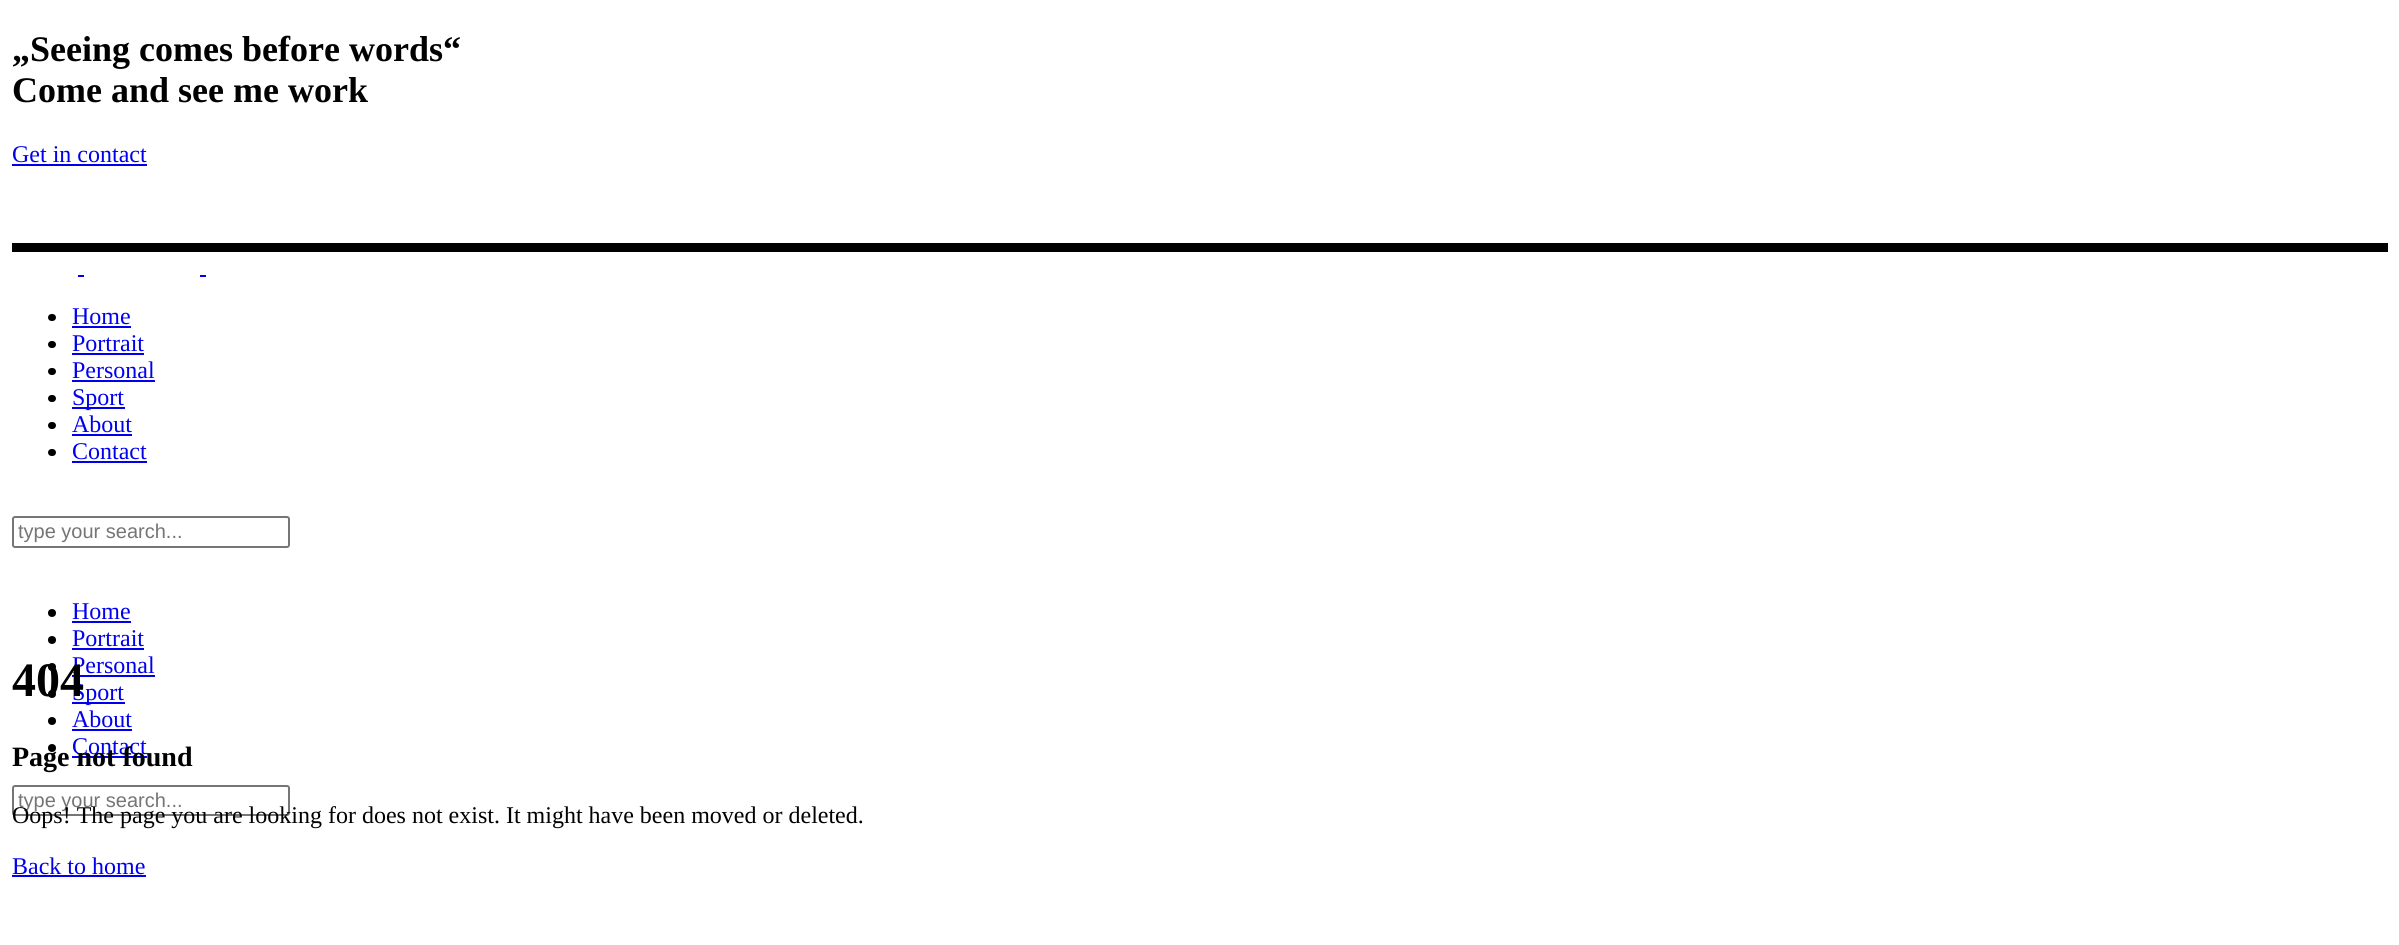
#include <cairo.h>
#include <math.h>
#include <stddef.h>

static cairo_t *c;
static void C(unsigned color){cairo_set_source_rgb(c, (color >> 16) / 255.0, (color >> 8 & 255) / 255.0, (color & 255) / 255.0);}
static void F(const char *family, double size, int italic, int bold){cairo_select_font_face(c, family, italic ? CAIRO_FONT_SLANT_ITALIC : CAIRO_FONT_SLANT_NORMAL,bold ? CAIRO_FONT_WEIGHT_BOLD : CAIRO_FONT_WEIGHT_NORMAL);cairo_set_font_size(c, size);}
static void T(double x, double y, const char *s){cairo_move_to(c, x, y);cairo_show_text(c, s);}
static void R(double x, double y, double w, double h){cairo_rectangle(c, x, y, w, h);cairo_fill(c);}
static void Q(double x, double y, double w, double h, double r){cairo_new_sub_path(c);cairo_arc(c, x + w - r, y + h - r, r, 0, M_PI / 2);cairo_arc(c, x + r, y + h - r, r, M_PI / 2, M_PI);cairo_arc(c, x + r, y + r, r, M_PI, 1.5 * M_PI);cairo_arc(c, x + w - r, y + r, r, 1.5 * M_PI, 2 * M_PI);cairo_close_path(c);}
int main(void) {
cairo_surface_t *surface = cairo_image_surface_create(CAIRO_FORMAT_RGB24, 2399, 945);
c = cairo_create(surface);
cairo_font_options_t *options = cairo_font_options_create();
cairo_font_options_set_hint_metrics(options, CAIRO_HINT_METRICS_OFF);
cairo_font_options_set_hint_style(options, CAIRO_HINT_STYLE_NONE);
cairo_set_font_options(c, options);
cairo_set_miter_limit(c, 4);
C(0xffffff);
cairo_paint(c);
F("Liberation Serif",36,0,1);
C(0x000000);
T(12,61,"„Seeing comes before words“");
T(12,102,"Come and see me work");
F("Liberation Serif",24,0,0);
C(0x0000ee);
T(12,162,"Get in contact");
R(12,164,135,2);
C(0x000000);
R(12,243,2376,9);
C(0x0000ee);
R(78,275,6,2);
R(200,275,6,2);
C(0x000000);
Q(48,314,8,7,3.5);
cairo_fill(c);
C(0x0000ee);
T(72,324,"Home");
R(72,326,59,2);
C(0x000000);
Q(48,341,8,7,3.5);
cairo_fill(c);
C(0x0000ee);
T(72,351,"Portrait");
R(72,353,72,2);
C(0x000000);
Q(48,368,8,7,3.5);
cairo_fill(c);
C(0x0000ee);
T(72,378,"Personal");
R(72,380,83,2);
C(0x000000);
Q(48,395,8,7,3.5);
cairo_fill(c);
C(0x0000ee);
R(72,407,53,2);
T(72,405,"Sport");
C(0x000000);
Q(48,422,8,7,3.5);
cairo_fill(c);
C(0x0000ee);
T(72,432,"About");
R(72,434,60,2);
C(0x000000);
Q(48,449,8,7,3.5);
cairo_fill(c);
C(0x0000ee);
T(72,459,"Contact");
R(72,461,75,2);
Q(13,517,276,30,2);
C(0x767676);
cairo_stroke(c);
F("Liberation Sans",20,0,0);
C(0x757575);
T(18,538,"type your search...");
C(0x000000);
cairo_new_path(c);
cairo_arc(c,52,613,4,0,2 * M_PI);
cairo_fill(c);
F("Liberation Serif",24,0,0);
C(0x0000ee);
T(72,619,"Home");
R(72,621,59,2);
C(0x000000);
cairo_new_path(c);
cairo_arc(c,52,640,4,0,2 * M_PI);
cairo_fill(c);
C(0x0000ee);
T(72,646,"Portrait");
R(72,648,72,2);
C(0x000000);
cairo_new_path(c);
cairo_arc(c,52,667,4,0,2 * M_PI);
cairo_fill(c);
C(0x0000ee);
T(72,673,"Personal");
R(72,675,83,2);
C(0x000000);
cairo_new_path(c);
cairo_arc(c,52,694,4,0,2 * M_PI);
cairo_fill(c);
C(0x0000ee);
R(72,702,53,2);
T(72,700,"Sport");
C(0x000000);
cairo_new_path(c);
cairo_arc(c,52,721,4,0,2 * M_PI);
cairo_fill(c);
C(0x0000ee);
T(72,727,"About");
R(72,729,60,2);
C(0x000000);
cairo_new_path(c);
cairo_arc(c,52,748,4,0,2 * M_PI);
cairo_fill(c);
C(0x0000ee);
T(72,754,"Contact");
R(72,756,75,2);
Q(13,786,276,29,2);
C(0x767676);
cairo_stroke(c);
F("Liberation Sans",20,0,0);
C(0x757575);
T(18,807,"type your search...");
F("Liberation Serif",48,0,1);
C(0x000000);
T(12,696,"404");
F("Liberation Serif",28,0,1);
T(12,766,"Page not found");
F("Liberation Serif",24,0,0);
T(12,823,"Oops! The page you are looking for does not exist. It might have been moved or deleted.");
C(0x0000ee);
T(12,874,"Back to home");
R(12,875,134,2);
cairo_surface_write_to_png(surface, "o.png");
cairo_font_options_destroy(options);
cairo_destroy(c);
cairo_surface_destroy(surface);
return 0;
}
